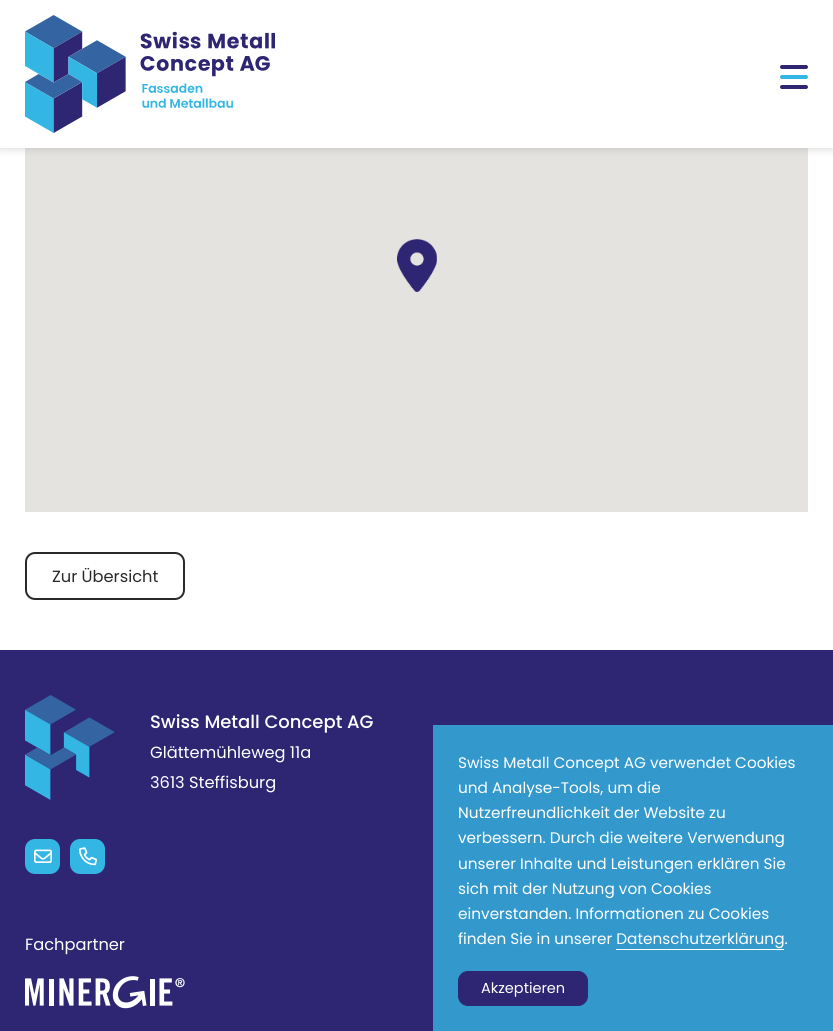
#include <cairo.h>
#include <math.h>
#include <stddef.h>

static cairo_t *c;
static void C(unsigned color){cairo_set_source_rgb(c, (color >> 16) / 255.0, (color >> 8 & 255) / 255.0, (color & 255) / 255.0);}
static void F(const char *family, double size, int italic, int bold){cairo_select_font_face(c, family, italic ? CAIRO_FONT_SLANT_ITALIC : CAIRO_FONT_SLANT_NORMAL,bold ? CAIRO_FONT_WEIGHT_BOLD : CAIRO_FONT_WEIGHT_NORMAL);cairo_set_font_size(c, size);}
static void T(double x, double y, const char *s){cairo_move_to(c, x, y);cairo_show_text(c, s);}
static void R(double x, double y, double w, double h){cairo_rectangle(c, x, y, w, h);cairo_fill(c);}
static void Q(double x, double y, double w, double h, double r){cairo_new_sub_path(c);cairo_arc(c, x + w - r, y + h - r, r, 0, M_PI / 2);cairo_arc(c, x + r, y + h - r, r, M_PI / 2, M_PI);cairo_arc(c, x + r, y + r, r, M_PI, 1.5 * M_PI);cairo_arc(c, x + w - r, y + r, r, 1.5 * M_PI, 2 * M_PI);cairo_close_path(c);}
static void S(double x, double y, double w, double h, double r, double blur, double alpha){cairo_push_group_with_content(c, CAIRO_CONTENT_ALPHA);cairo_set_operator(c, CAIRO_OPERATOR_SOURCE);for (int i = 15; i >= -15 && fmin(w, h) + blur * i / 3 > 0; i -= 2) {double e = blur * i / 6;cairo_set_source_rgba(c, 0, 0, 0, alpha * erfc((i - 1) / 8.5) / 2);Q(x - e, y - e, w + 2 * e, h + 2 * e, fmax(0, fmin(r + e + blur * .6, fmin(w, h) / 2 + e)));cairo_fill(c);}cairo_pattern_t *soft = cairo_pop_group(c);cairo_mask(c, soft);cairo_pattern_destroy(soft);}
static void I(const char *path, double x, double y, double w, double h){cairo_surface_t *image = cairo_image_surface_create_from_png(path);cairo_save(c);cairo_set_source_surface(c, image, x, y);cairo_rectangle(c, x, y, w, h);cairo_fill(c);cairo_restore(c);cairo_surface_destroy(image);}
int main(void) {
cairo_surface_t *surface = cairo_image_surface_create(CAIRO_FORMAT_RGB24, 833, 1031);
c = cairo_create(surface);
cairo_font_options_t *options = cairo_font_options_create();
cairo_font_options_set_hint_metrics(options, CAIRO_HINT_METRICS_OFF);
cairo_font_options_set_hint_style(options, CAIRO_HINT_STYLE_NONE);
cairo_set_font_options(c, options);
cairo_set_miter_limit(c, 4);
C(0xffffff);
cairo_paint(c);
C(0xe5e3df);
R(25,148,783,364);
C(0x636363);
S(0,2,833,148,0,4,.2);
C(0xffffff);
R(0,0,833,148);
I("1.png",25,15,250,118);
I("2.png",780,65,28,24);
I("3.png",397,239,40,53);
Q(26,553,158,46,9);
C(0x292929);
cairo_stroke(c);
F("Poppins",16.25,0,0);
T(52,582,"Zur Übersicht");
C(0x2e2573);
R(0,650,833,381);
I("4.png",25,695,90,105);
F("Poppins Medium",18,0,0);
C(0xffffff);
T(150,728,"Swiss Metall Concept AG");
F("Poppins",16.25,0,0);
T(150,758,"Glättemühleweg 11a");
T(150,788,"3613 Steffisburg");
C(0x34b6e4);
Q(25,839,35,35,10);
cairo_fill(c);
I("5.png",34,849,18,14);
Q(70,839,35,35,10);
cairo_fill(c);
I("6.png",79,847,18,19);
C(0xffffff);
T(25,950,"Fachpartner");
I("7.png",25,976,160,33);
C(0x3399cd);
R(433,725,400,306);
F("Poppins",15.3,0,0);
C(0xffffff);
T(458,768,"Swiss Metall Concept AG verwendet Cookies");
T(458,793,"und Analyse-Tools, um die");
T(458,818,"Nutzerfreundlichkeit der Website zu");
T(458,843,"verbessern. Durch die weitere Verwendung");
T(458,869,"unserer Inhalte und Leistungen erklären Sie");
T(458,894,"sich mit der Nutzung von Cookies");
T(458,919,"einverstanden. Informationen zu Cookies");
T(458,944,"finden Sie in unserer Datenschutzerklärung.");
R(616,949,168,1);
C(0x2e2573);
Q(458.5,971.5,129,34,9.5);
cairo_fill_preserve(c);
cairo_set_line_width(c,1);
cairo_stroke(c);
F("Poppins",14.5,0,0);
C(0xffffff);
T(481,993,"Akzeptieren");
cairo_surface_write_to_png(surface, "o.png");
cairo_font_options_destroy(options);
cairo_destroy(c);
cairo_surface_destroy(surface);
return 0;
}
